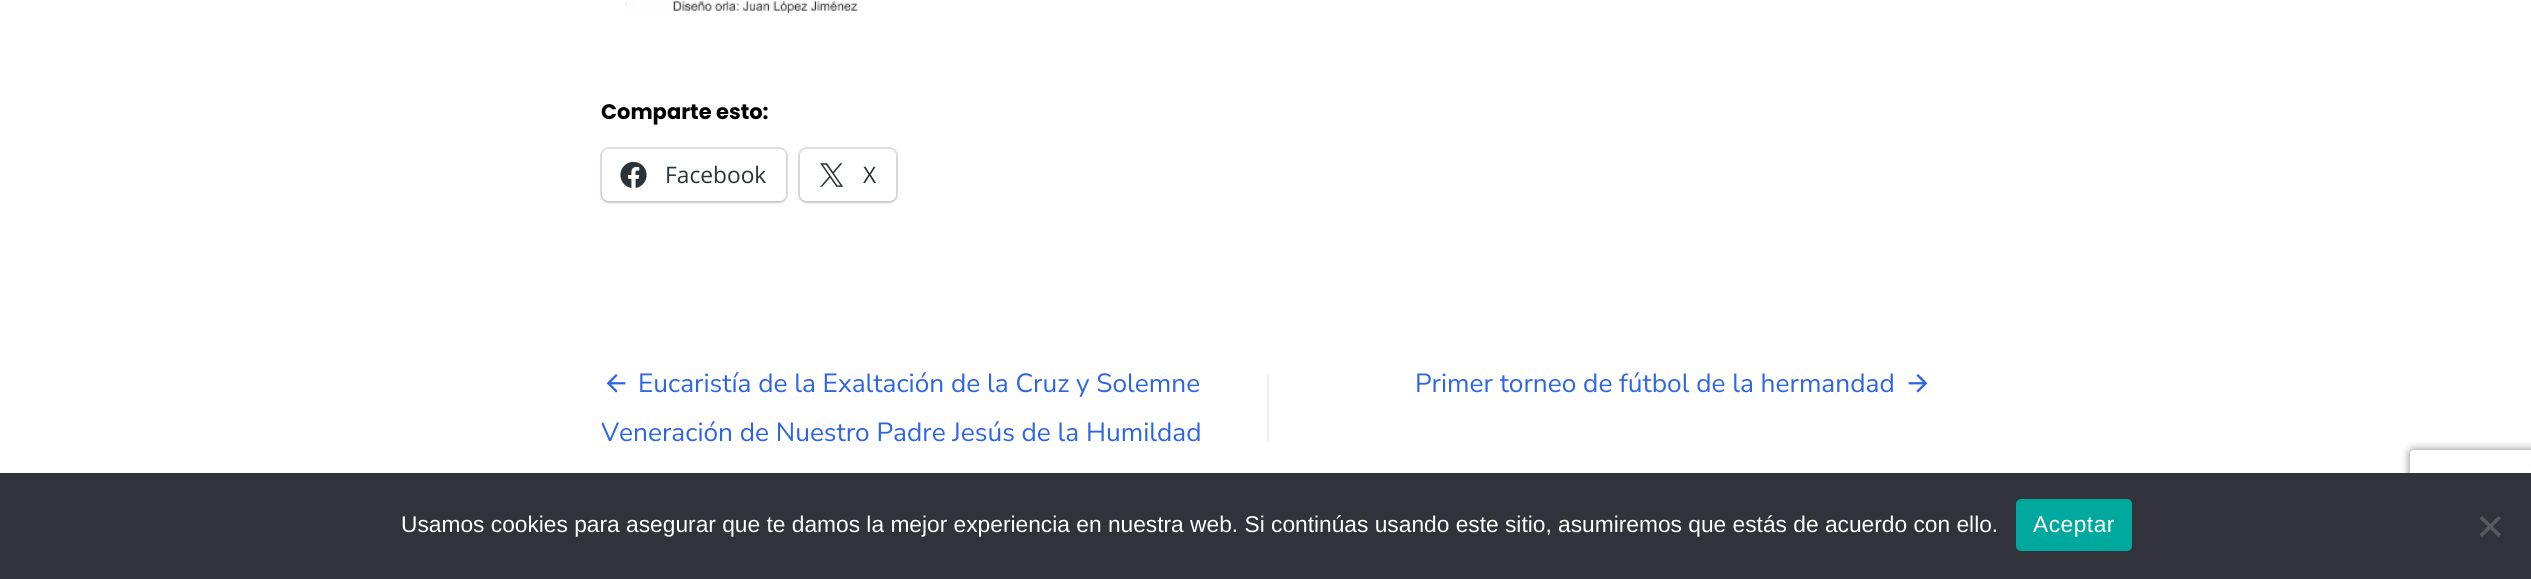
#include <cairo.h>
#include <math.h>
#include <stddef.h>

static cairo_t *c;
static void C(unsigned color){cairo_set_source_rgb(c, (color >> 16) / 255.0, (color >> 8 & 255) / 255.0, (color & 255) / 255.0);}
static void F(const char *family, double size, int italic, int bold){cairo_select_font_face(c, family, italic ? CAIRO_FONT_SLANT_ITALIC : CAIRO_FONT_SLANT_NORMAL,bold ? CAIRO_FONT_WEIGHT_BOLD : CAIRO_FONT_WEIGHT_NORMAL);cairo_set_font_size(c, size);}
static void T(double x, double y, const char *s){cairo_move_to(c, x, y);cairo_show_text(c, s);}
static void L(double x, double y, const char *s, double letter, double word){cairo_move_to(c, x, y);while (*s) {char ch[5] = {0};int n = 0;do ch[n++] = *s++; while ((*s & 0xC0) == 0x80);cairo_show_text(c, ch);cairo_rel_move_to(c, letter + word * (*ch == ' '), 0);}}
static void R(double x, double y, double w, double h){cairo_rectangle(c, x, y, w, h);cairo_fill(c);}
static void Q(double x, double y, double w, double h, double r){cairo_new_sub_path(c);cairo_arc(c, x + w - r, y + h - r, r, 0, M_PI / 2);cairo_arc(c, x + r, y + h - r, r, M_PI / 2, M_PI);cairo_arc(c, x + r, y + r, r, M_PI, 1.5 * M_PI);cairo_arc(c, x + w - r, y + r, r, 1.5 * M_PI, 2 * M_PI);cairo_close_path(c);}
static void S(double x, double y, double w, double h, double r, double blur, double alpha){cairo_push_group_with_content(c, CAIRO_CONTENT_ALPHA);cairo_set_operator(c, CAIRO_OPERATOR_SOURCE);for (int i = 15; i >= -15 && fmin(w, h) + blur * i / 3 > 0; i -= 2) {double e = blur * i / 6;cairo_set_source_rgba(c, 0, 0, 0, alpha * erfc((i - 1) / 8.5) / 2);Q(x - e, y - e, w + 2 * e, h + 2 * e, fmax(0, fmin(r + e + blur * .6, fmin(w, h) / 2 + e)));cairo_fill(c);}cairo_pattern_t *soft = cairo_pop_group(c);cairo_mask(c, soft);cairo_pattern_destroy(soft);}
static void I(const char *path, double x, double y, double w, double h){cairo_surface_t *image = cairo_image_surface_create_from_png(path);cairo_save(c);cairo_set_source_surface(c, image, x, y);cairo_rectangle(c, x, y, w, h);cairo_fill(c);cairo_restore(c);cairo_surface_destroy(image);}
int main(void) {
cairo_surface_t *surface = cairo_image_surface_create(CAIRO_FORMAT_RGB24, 2531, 579);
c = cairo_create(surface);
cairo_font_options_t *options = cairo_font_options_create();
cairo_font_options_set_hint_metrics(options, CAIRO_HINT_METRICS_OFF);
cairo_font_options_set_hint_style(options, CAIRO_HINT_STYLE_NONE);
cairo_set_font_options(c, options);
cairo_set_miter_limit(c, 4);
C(0xffffff);
cairo_paint(c);
I("1.png",625,1,236,14);
F("Poppins",21,0,1);
C(0x000000);
T(601,119,"Comparte esto:");
Q(601,148,186,54,8);
C(0xe0e0e0);
cairo_stroke(c);
C(0x000000);
S(602,151,184,52,7,2,.12);
C(0xffffff);
Q(602,149,184,52,7);
cairo_fill(c);
I("2.png",620,161,27,27);
F("Open Sans",22.75,0,0);
C(0x2c3338);
T(665,183,"Facebook");
Q(799,148,98,54,8);
C(0xe0e0e0);
cairo_stroke(c);
C(0x000000);
S(800,151,96,52,7,2,.12);
C(0xffffff);
Q(800,149,96,52,7);
cairo_fill(c);
I("3.png",820,163,24,24);
C(0x2c3338);
T(863,183,"X");
I("4.png",606,374,20,19);
F("Nunito Sans",26.25,0,0);
C(0x2e64e6);
T(638,392,"Eucaristía de la Exaltación de la Cruz y Solemne");
cairo_save(c);
cairo_rectangle(c,602,341,1330,133);
cairo_clip(c);
T(601,441,"Veneración de Nuestro Padre Jesús de la Humildad");
cairo_restore(c);
T(1415,392,"Primer torneo de fútbol de la hermandad");
I("5.png",1908,374,20,19);
C(0xeeeeee);
R(1267,375,2,66);
cairo_save(c);
cairo_set_fill_rule(c,CAIRO_FILL_RULE_EVEN_ODD);
cairo_new_path(c);
cairo_move_to(c,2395,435);
cairo_line_to(c,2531,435);
cairo_line_to(c,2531,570);
cairo_line_to(c,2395,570);
cairo_close_path(c);
cairo_move_to(c,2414,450);
cairo_line_to(c,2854,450);
cairo_curve_to(c,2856,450,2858,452,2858,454);
cairo_line_to(c,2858,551);
cairo_curve_to(c,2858,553,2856,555,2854,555);
cairo_line_to(c,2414,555);
cairo_curve_to(c,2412,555,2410,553,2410,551);
cairo_line_to(c,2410,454);
cairo_curve_to(c,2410,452,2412,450,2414,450);
cairo_close_path(c);
cairo_clip(c);
C(0x808080);
S(2410,450,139,105,4,4.5,1);
cairo_restore(c);
C(0x32323a);
R(0,473,2531,106);
F("Liberation Sans",22.75,0,0);
C(0xffffff);
T(401,532,"Usamos cookies para asegurar que te damos la mejor experiencia en nuestra web. Si continúas usando este sitio, asumiremos que estás de acuerdo con ello.");
C(0x00a99d);
Q(2016,499,116,52,5);
cairo_fill(c);
C(0xffffff);
L(2033,532,"Aceptar",.5,0);
C(0x59595d);
cairo_new_path(c);
cairo_move_to(c,2498.5,516);
cairo_line_to(c,2501,518.5);
cairo_line_to(c,2482,537);
cairo_line_to(c,2479.5,534.5);
cairo_close_path(c);
cairo_fill(c);
cairo_new_path(c);
cairo_move_to(c,2479.5,518.5);
cairo_line_to(c,2482,516);
cairo_line_to(c,2501,534.5);
cairo_line_to(c,2498.5,537);
cairo_close_path(c);
cairo_fill(c);
cairo_surface_write_to_png(surface, "o.png");
cairo_font_options_destroy(options);
cairo_destroy(c);
cairo_surface_destroy(surface);
return 0;
}
